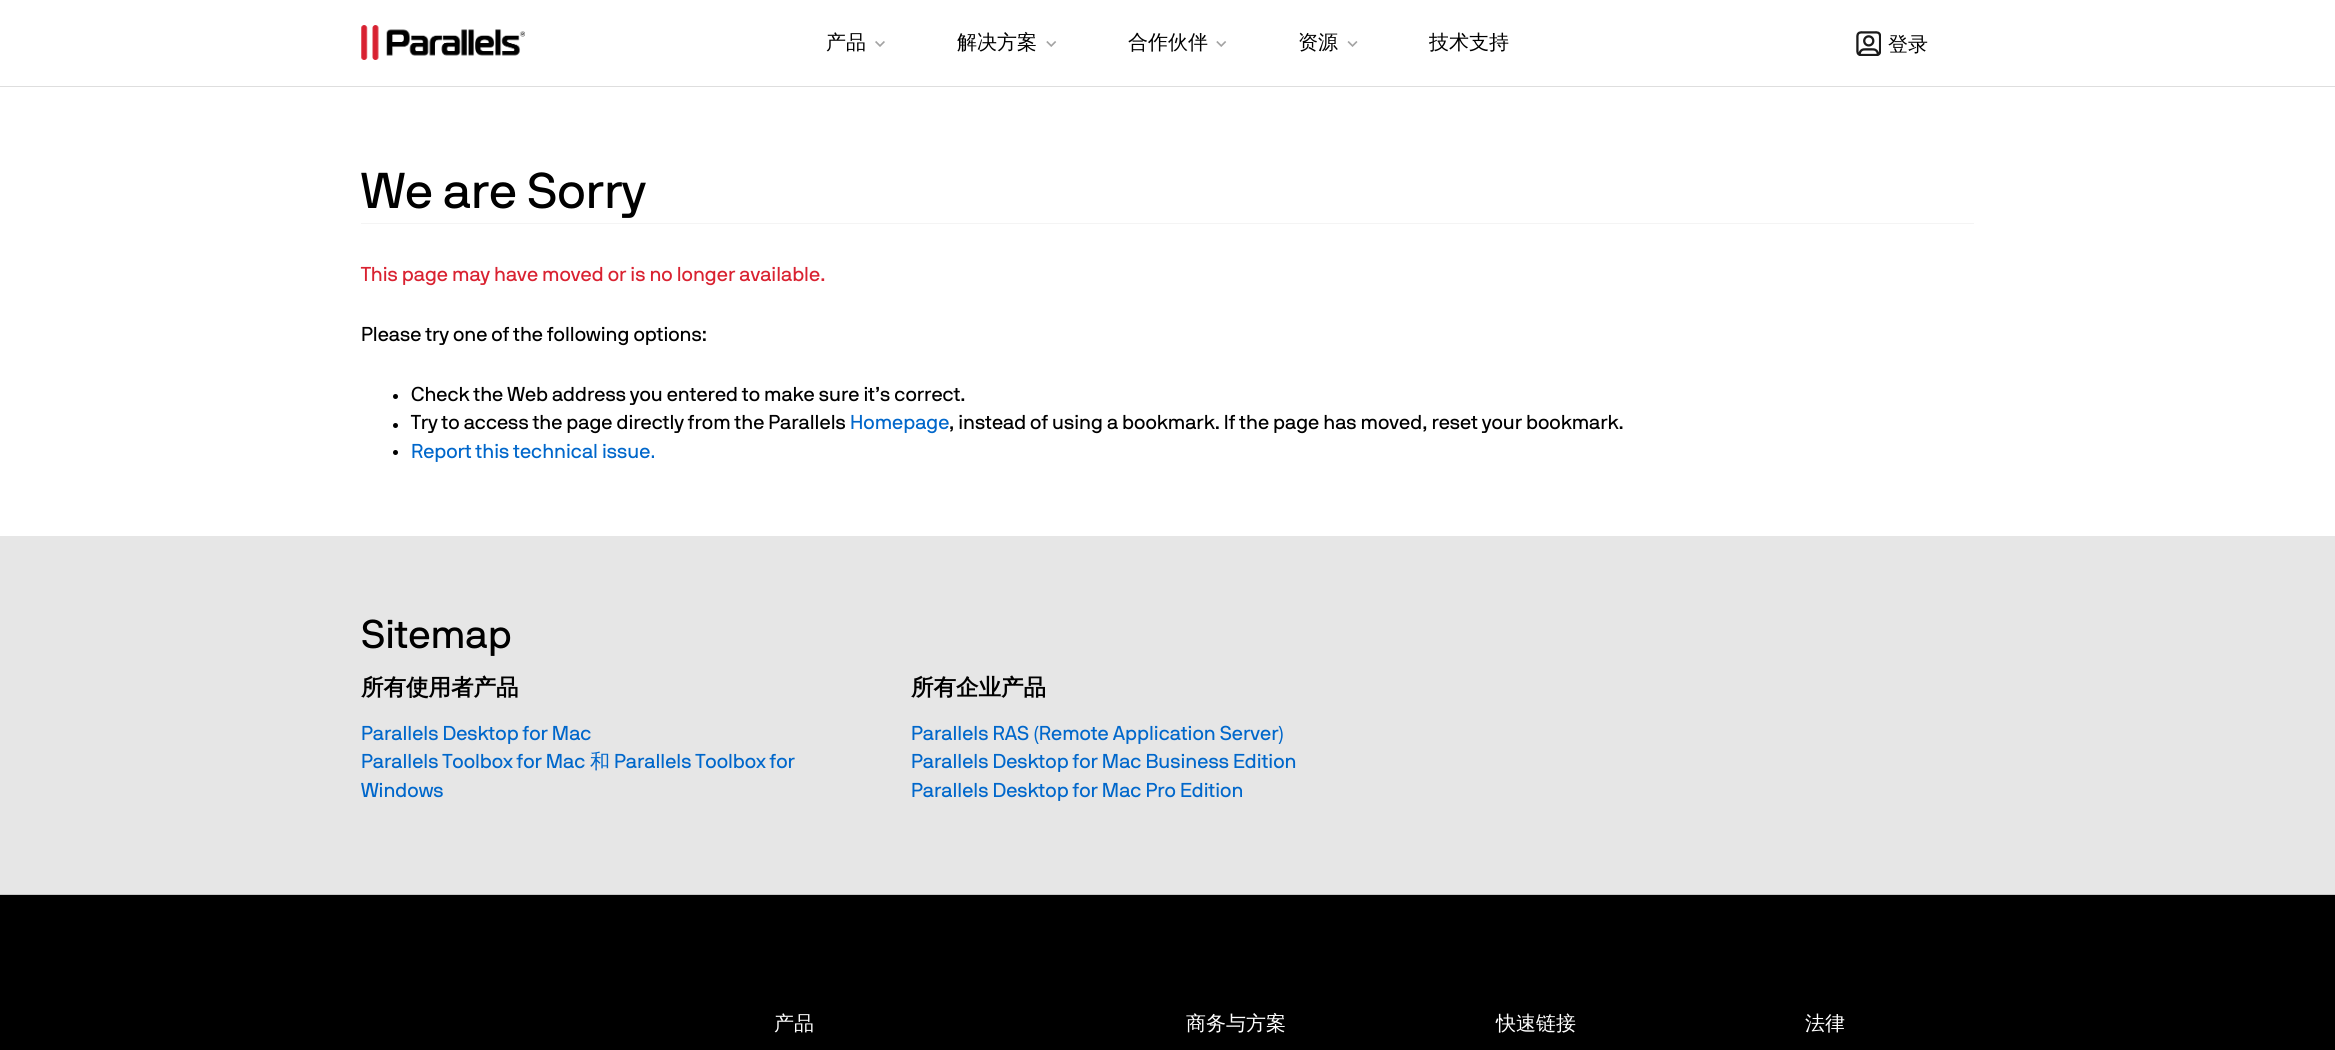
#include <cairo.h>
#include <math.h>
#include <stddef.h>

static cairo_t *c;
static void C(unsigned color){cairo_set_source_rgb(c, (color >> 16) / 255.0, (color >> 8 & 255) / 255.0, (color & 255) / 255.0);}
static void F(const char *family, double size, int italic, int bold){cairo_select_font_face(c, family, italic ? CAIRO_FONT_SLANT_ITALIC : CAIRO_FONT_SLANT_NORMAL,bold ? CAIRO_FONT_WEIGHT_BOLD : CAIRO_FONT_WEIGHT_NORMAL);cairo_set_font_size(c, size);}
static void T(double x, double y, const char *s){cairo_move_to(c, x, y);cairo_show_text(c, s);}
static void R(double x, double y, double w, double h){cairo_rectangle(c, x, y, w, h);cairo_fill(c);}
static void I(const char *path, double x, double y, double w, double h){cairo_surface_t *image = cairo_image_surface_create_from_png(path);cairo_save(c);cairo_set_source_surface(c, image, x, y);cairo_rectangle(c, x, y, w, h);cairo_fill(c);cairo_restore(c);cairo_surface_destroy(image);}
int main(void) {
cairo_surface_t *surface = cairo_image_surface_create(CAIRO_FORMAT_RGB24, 2335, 1050);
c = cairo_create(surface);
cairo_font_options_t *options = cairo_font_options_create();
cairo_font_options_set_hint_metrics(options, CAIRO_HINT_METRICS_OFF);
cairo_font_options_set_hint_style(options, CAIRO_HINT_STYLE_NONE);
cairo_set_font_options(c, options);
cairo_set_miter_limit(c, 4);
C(0xffffff);
cairo_paint(c);
C(0xdedede);
R(0,86,2335,1);
I("1.png",361,25,164,35);
F("WenQuanYi Zen Hei Medium",20,0,0);
C(0x000000);
T(826,49,"产品");
I("2.png",875,41,10,6);
T(957,49,"解决方案");
I("3.png",1046,41,11,6);
T(1128,49,"合作伙伴");
I("3.png",1216,41,11,6);
T(1298,49,"资源");
I("4.png",1347,41,11,6);
T(1429,49,"技术支持");
I("5.png",1856,31,25,25);
T(1888,51,"登录");
C(0xf4f4f4);
R(361,223,1613,1);
F("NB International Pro",50,0,0);
C(0x000000);
T(361,208,"We are Sorry");
F("NB International Pro",20,0,0);
C(0xd92231);
T(361,281,"This page may have moved or is no longer available.");
C(0x000000);
T(361,341,"Please try one of the following options:");
cairo_new_path(c);
cairo_arc(c,395.5,396.5,2.5,0,2 * M_PI);
cairo_fill(c);
T(411,401,"Check the Web address you entered to make sure it’s correct.");
cairo_new_path(c);
cairo_arc(c,395.5,425.5,2.5,0,2 * M_PI);
cairo_fill(c);
T(411,429,"Try to access the page directly from the Parallels");
C(0x0067cb);
T(850,429,"Homepage");
C(0x000000);
T(949,429,", instead of using a bookmark. If the page has moved, reset your bookmark.");
cairo_new_path(c);
cairo_arc(c,395.5,452.5,2.5,0,2 * M_PI);
cairo_fill(c);
C(0x0067cb);
T(411,458,"Report this technical issue.");
C(0xe6e6e6);
R(0,536,2335,358);
C(0xc8c8c8);
R(0,894,2335,1);
F("NB International Pro",40,0,0);
C(0x000000);
T(361,648,"Sitemap");
F("WenQuanYi Zen Hei",22.5,0,1);
T(361,695,"所有使用者产品");
F("NB International Pro",20,0,0);
C(0x0067cb);
T(361,740,"Parallels Desktop for Mac");
T(361,768,"Parallels Toolbox for Mac");
F("WenQuanYi Zen Hei Medium",20,0,0);
T(590,768,"和");
F("NB International Pro",20,0,0);
T(614,768,"Parallels Toolbox for");
T(361,797,"Windows");
F("WenQuanYi Zen Hei",22.5,0,1);
C(0x000000);
T(911,695,"所有企业产品");
F("NB International Pro",20,0,0);
C(0x0067cb);
T(911,740,"Parallels RAS (Remote Application Server)");
T(911,768,"Parallels Desktop for Mac Business Edition");
T(911,797,"Parallels Desktop for Mac Pro Edition");
C(0x000000);
R(0,895,2335,155);
F("WenQuanYi Zen Hei Medium",20,0,0);
C(0xffffff);
T(774,1030,"产品");
T(1186,1030,"商务与方案");
T(1496,1030,"快速链接");
T(1805,1030,"法律");
cairo_surface_write_to_png(surface, "o.png");
cairo_font_options_destroy(options);
cairo_destroy(c);
cairo_surface_destroy(surface);
return 0;
}
